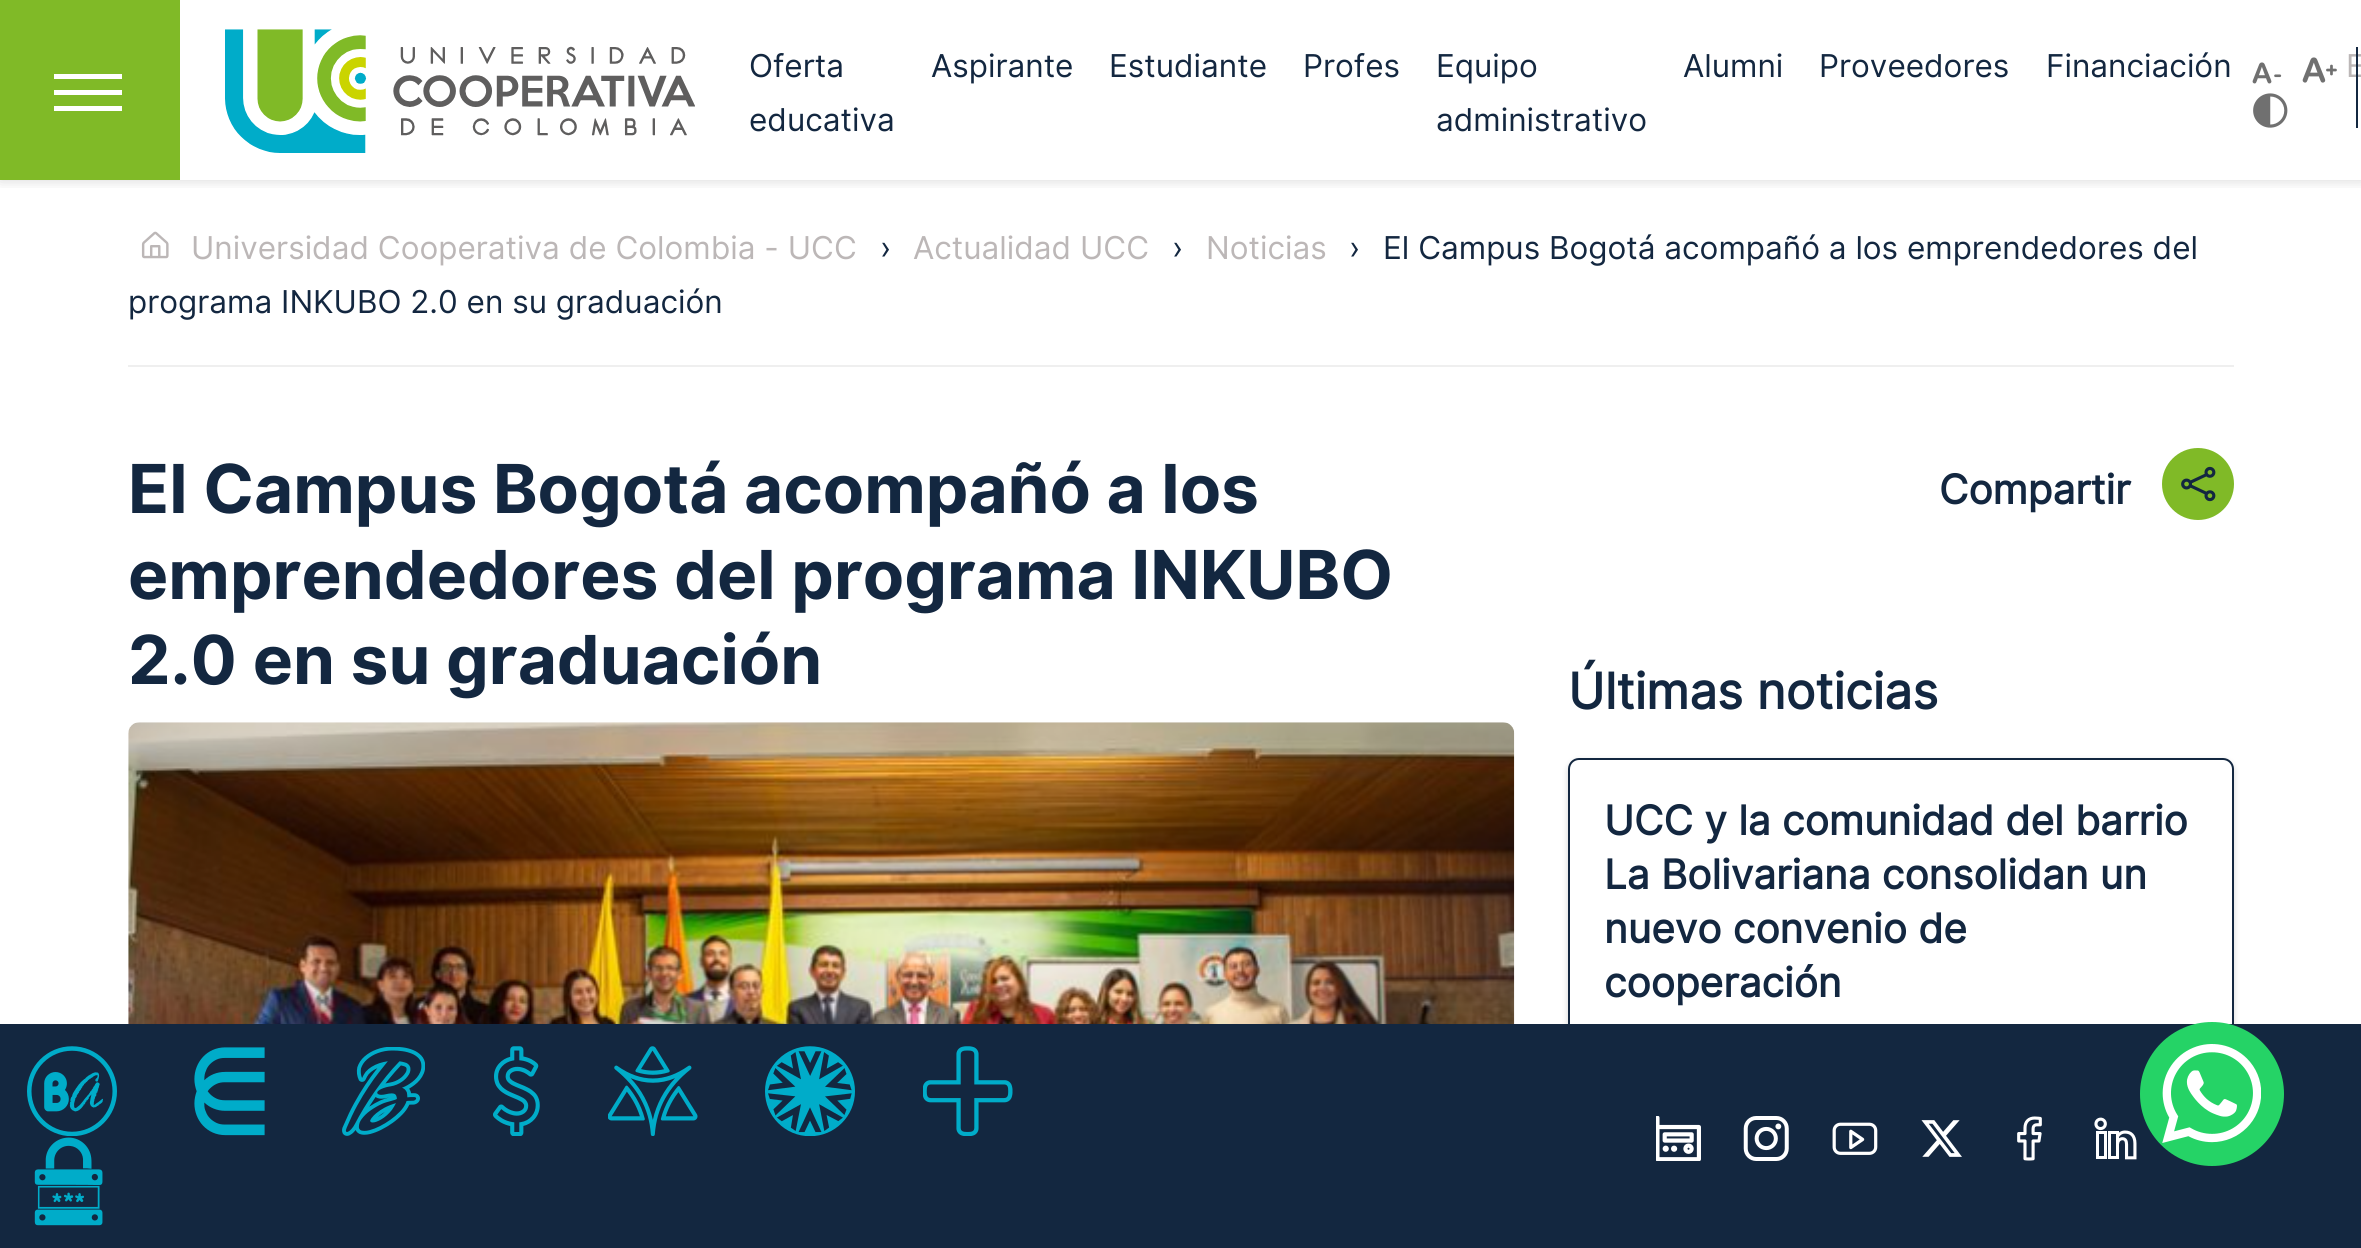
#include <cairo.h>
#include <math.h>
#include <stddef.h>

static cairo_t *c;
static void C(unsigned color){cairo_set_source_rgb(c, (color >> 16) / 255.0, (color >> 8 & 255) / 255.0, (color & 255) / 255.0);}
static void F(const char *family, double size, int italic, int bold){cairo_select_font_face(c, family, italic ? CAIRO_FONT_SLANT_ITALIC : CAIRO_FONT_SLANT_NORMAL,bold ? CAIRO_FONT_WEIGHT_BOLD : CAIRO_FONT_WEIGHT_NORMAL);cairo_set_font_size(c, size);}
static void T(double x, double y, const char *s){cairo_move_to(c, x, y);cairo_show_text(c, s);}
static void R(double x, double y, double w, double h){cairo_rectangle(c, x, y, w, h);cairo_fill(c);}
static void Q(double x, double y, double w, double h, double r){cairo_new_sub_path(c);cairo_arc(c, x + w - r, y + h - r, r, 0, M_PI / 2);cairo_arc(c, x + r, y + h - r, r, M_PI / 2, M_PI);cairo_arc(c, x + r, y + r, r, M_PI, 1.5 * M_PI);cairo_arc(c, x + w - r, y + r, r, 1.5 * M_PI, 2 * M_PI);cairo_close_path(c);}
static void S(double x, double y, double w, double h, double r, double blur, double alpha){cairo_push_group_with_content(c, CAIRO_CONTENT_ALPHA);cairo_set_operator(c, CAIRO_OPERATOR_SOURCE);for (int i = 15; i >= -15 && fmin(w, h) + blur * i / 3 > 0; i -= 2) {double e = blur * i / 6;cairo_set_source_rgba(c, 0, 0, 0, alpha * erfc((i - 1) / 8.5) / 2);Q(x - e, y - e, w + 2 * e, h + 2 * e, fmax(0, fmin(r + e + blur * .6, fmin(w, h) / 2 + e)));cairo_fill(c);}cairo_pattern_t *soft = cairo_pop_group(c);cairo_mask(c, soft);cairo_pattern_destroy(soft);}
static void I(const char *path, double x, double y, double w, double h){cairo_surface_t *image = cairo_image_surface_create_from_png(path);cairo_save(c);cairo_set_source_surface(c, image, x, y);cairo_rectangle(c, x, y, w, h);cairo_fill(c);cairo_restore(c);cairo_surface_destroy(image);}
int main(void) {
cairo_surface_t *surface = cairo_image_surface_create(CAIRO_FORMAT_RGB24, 2361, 1248);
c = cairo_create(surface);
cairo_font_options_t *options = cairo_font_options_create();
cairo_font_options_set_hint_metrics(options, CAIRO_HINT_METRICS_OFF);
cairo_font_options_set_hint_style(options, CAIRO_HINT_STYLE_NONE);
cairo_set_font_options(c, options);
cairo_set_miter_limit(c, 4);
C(0xffffff);
cairo_paint(c);
cairo_save(c);
cairo_rectangle(c,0,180,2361,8);
cairo_clip(c);
C(0x000000);
S(0,0,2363,180,0,7,.16);
cairo_restore(c);
C(0x80ba27);
R(0,0,180,180);
C(0xffffff);
R(54,90,68,5);
R(54,74,68,5);
R(54,106,68,5);
I("1.png",225,29,470,124);
F("Inter",31.5,0,0);
C(0x132740);
T(749,77,"Oferta");
T(749,131,"educativa");
T(931,77,"Aspirante");
T(1109,77,"Estudiante");
T(1303,77,"Profes");
T(1436,77,"Equipo");
T(1436,131,"administrativo");
T(1683,77,"Alumni");
T(1819,77,"Proveedores");
T(2046,77,"Financiación");
I("2.png",2252,62,30,22);
I("3.png",2302,57,35,26);
I("4.png",2253,93,35,35);
C(0xbcb7b7);
T(2346,77,"E");
C(0x132740);
R(2356,47,2,81);
C(0xefefef);
R(128,365,2106,2);
I("5.png",141,231,28,28);
C(0xbcb7b7);
T(191,259,"Universidad Cooperativa de Colombia - UCC");
C(0x132740);
T(880,259,"›");
C(0xbcb7b7);
T(913,259,"Actualidad UCC");
C(0x132740);
T(1172,259,"›");
C(0xbcb7b7);
T(1206,259,"Noticias");
C(0x132740);
T(1349,259,"›");
T(1383,259,"El Campus Bogotá acompañó a los emprendedores del");
T(128,313,"programa INKUBO 2.0 en su graduación");
F("Inter",67.5,0,1);
T(128,513,"El Campus Bogotá acompañó a los");
T(128,599,"emprendedores del programa INKUBO");
T(128,684,"2.0 en su graduación");
I("6.png",128,722,1387,302);
C(0x80ba27);
cairo_arc(c,2198,484,36,0,2 * M_PI);
cairo_fill(c);
F("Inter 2",40.5,0,1);
C(0x132740);
T(1939,504,"Compartir");
I("7.png",2181,466,35,36);
F("Inter 2",49.5,0,1);
T(1568,709,"Últimas noticias");
cairo_save(c);
cairo_set_fill_rule(c,CAIRO_FILL_RULE_EVEN_ODD);
cairo_new_path(c);
cairo_move_to(c,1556,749);
cairo_line_to(c,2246,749);
cairo_line_to(c,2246,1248);
cairo_line_to(c,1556,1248);
cairo_close_path(c);
cairo_move_to(c,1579,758);
cairo_line_to(c,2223,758);
cairo_curve_to(c,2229,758,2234,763,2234,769);
cairo_line_to(c,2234,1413);
cairo_curve_to(c,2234,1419,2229,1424,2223,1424);
cairo_line_to(c,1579,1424);
cairo_curve_to(c,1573,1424,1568,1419,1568,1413);
cairo_line_to(c,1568,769);
cairo_curve_to(c,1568,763,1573,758,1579,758);
cairo_close_path(c);
cairo_clip(c);
C(0x000000);
S(1568,761,666,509,11,3.5,.16);
cairo_restore(c);
Q(1569,759,664,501,10);
cairo_stroke(c);
F("Inter 2",40.5,0,1);
T(1604,835,"UCC y la comunidad del barrio");
T(1604,889,"La Bolivariana consolidan un");
T(1604,943,"nuevo convenio de");
T(1604,997,"cooperación");
R(0,1024,2361,224);
C(0x25d366);
cairo_new_path(c);
cairo_arc(c,2212,1094,72,0,2 * M_PI);
cairo_fill(c);
I("8.png",2162,1044,99,99);
I("9.png",27,1046,90,90);
I("10.png",194,1047,71,89);
I("11.png",342,1047,83,89);
I("12.png",493,1046,47,90);
I("13.png",608,1046,90,90);
I("14.png",765,1046,90,90);
I("15.png",923,1046,90,90);
I("16.png",34,1137,69,89);
I("17.png",1656,1116,45,45);
I("18.png",1743,1116,46,45);
I("19.png",1832,1122,46,33);
I("20.png",1921,1120,41,37);
I("21.png",2017,1116,25,45);
I("22.png",2094,1117,43,43);
cairo_surface_write_to_png(surface, "o.png");
cairo_font_options_destroy(options);
cairo_destroy(c);
cairo_surface_destroy(surface);
return 0;
}
